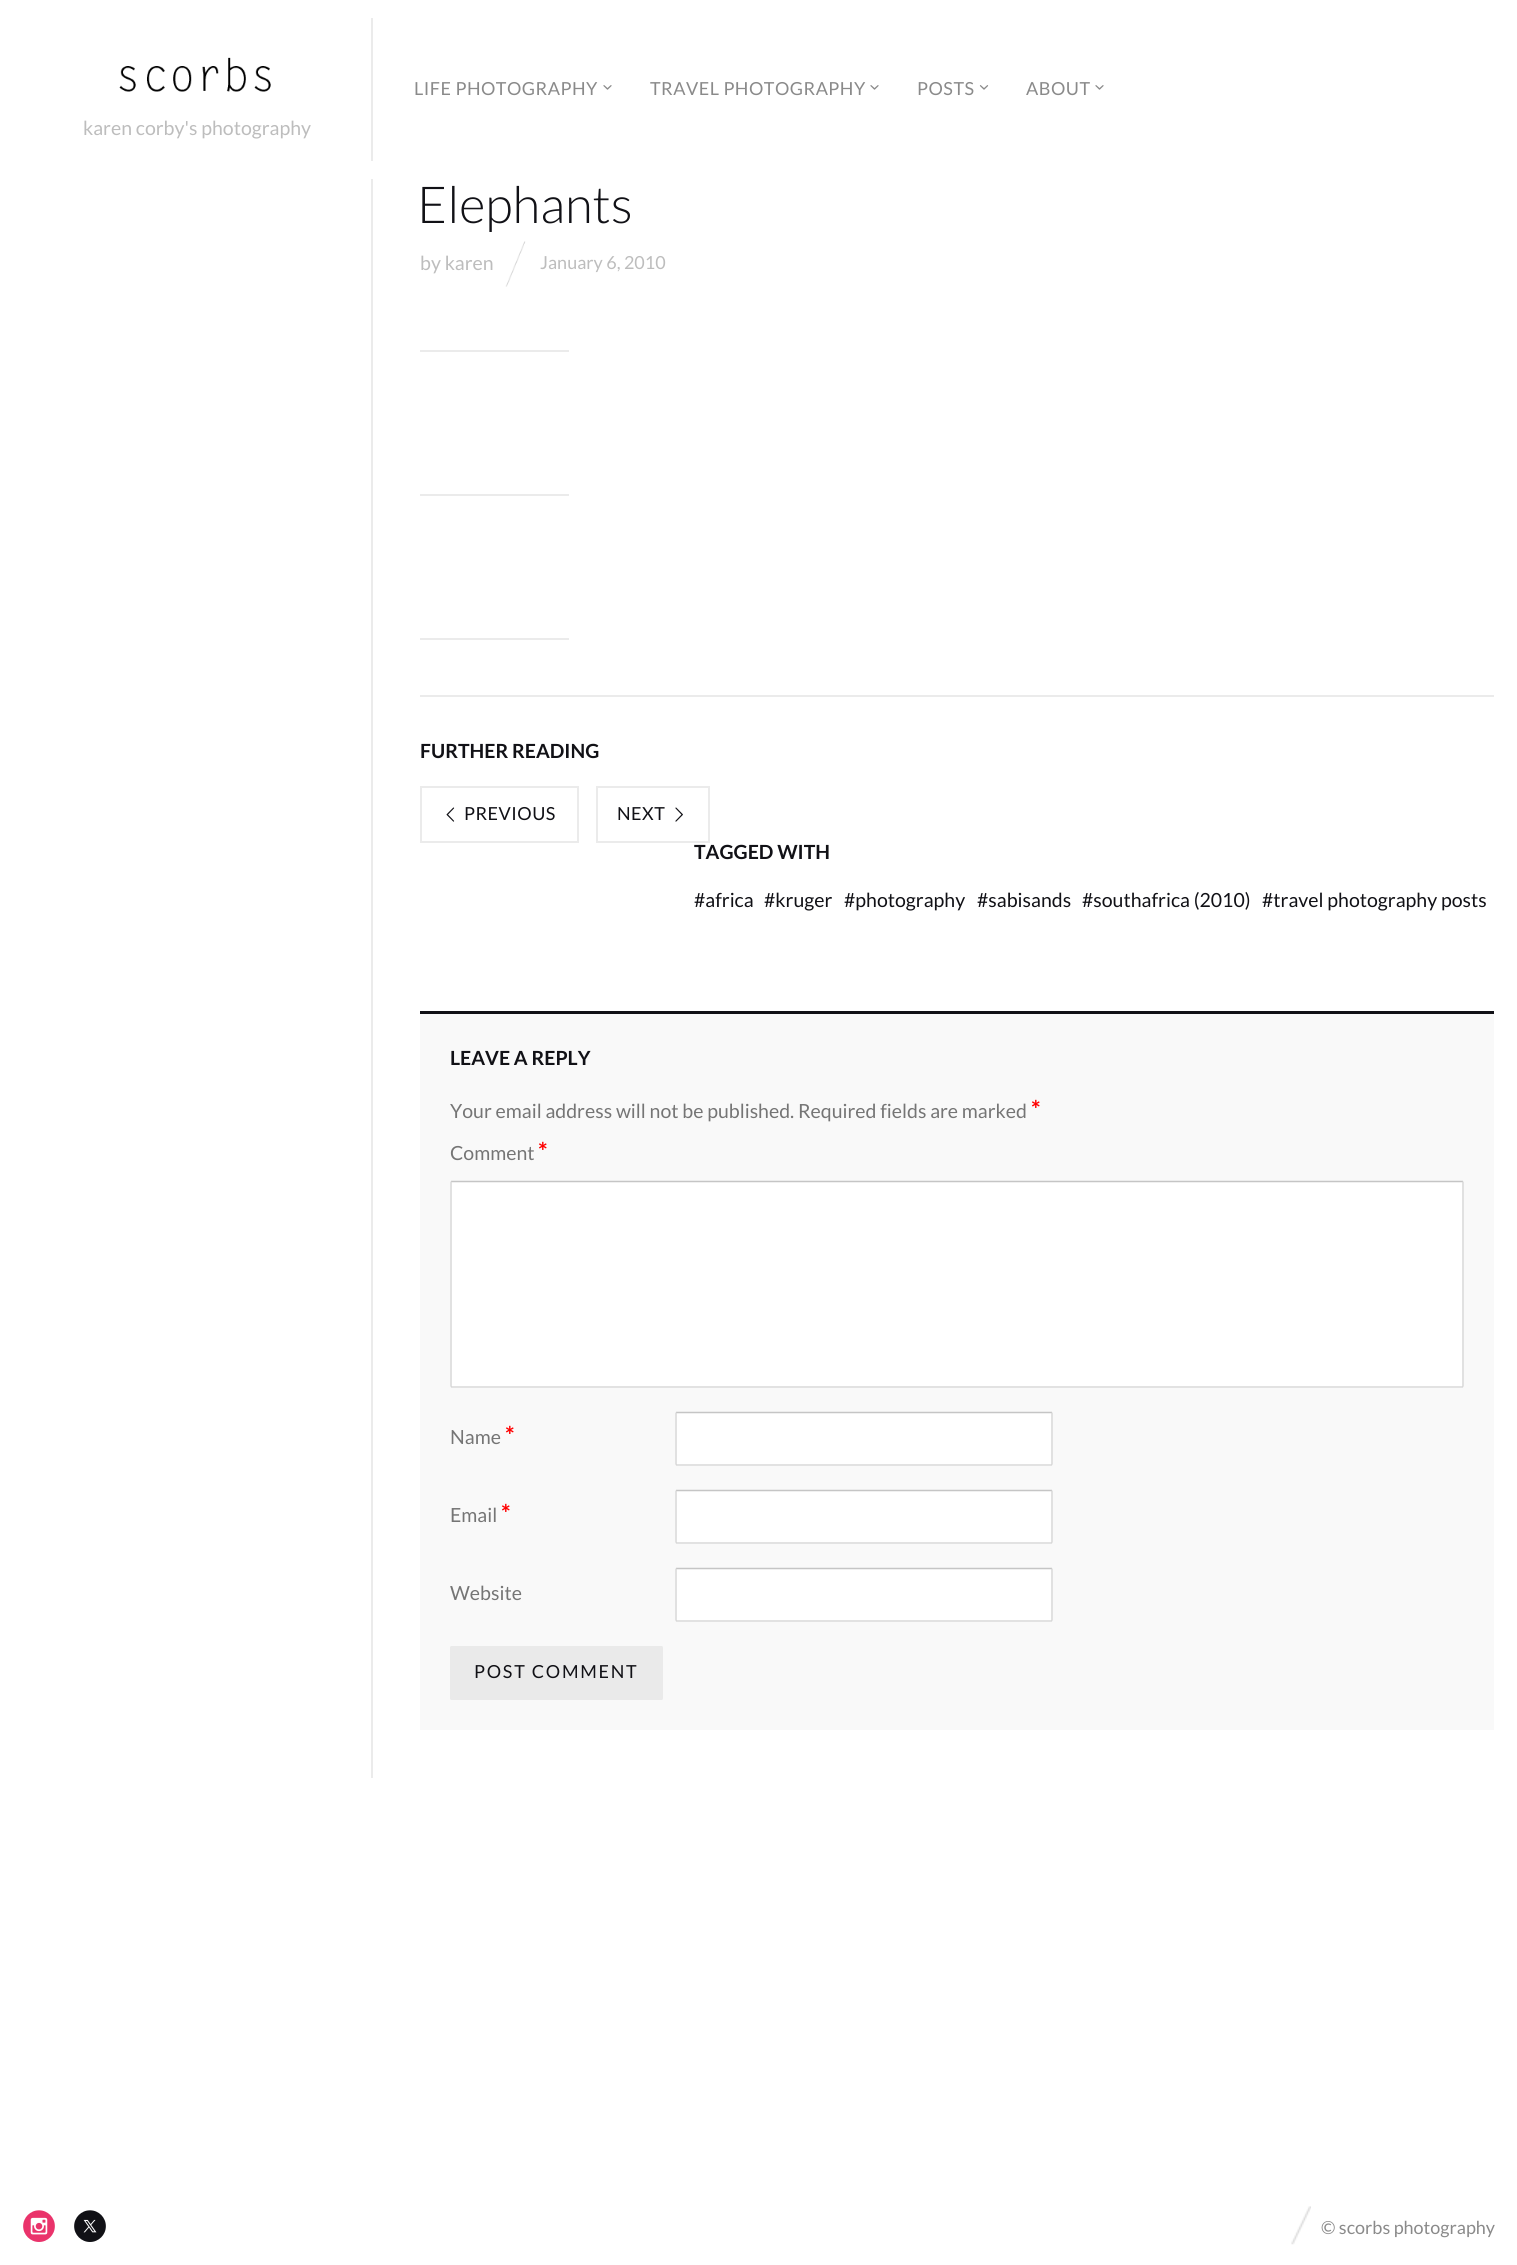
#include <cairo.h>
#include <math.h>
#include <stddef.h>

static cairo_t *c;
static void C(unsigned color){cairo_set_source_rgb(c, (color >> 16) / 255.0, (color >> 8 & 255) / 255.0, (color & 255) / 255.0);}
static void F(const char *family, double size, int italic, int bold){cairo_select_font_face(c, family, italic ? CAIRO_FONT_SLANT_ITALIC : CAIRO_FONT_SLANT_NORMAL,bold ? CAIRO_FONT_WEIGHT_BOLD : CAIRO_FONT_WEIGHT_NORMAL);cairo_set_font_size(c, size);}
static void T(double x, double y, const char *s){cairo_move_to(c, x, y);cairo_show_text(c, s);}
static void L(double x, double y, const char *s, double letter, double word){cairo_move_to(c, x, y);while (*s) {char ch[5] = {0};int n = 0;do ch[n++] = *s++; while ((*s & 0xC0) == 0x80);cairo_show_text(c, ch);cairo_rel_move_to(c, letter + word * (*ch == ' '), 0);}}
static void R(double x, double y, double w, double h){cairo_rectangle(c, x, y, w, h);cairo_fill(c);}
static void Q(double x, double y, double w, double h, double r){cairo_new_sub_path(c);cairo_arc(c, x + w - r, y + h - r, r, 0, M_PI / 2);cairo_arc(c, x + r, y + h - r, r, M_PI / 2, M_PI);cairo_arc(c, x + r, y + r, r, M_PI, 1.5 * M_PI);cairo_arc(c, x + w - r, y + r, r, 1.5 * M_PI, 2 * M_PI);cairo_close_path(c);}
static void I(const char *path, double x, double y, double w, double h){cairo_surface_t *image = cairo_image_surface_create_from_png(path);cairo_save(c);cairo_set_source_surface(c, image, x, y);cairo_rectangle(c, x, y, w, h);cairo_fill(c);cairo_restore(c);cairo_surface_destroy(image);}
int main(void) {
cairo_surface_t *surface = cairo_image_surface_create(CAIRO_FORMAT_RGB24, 1517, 2265);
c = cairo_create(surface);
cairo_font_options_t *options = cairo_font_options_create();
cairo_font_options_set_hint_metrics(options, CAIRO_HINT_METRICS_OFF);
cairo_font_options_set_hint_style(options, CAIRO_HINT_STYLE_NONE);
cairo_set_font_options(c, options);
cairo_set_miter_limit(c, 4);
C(0xffffff);
cairo_paint(c);
F("Lato",18,0,0);
C(0x8a8a8a);
L(414,95,"LIFE PHOTOGRAPHY",.5,0);
I("1.png",603,85,9,5);
L(650,95,"TRAVEL PHOTOGRAPHY",.5,0);
I("1.png",870,85,9,5);
L(917,95,"POSTS",.5,0);
I("2.png",979,85,10,5);
L(1026,95,"ABOUT",.5,0);
I("1.png",1095,85,9,5);
C(0xebebeb);
R(371,18,2,143);
I("3.png",119,57,152,35);
F("Lato",19.5,0,0);
C(0xbdbdbd);
T(83,135,"karen corby's photography");
C(0xebebeb);
R(371,179,2,1599);
F("Lato Light",51,0,0);
C(0x111116);
T(417,223,"Elephants");
F("Lato",19.5,0,0);
C(0xbdbdbd);
T(420,270,"by karen");
I("4.png",505,241,21,46);
F("Lato",18,0,0);
T(540,269,"January 6, 2010");
C(0xebebeb);
R(420,350,149,2);
R(420,494,149,2);
R(420,638,149,2);
R(420,695,1074,2);
F("Lato",19.5,0,1);
C(0x111116);
T(420,758,"FURTHER READING");
cairo_rectangle(c,421,787,157,55);
C(0xebebeb);
cairo_stroke(c);
I("5.png",446,807,9,15);
F("Lato",18,0,0);
C(0x111116);
L(464,820,"PREVIOUS",.5,0);
cairo_rectangle(c,597,787,112,55);
C(0xebebeb);
cairo_stroke(c);
C(0x111116);
L(617,820,"NEXT",.5,0);
I("6.png",675,807,8,15);
F("Lato",19.5,0,1);
T(694,859,"TAGGED WITH");
F("Lato",19.5,0,0);
T(694,907,"#africa");
T(764,907,"#kruger");
T(844,907,"#photography");
T(977,907,"#sabisands");
T(1082,907,"#southafrica (2010)");
T(1262,907,"#travel photography posts");
C(0xf9f9f9);
R(420,1014,1074,716);
C(0x111116);
R(420,1011,1074,3);
F("Lato",19.5,0,1);
T(450,1065,"LEAVE A REPLY");
F("Lato",19.5,0,0);
C(0x757575);
T(450,1118,"Your email address will not be published. Required fields are marked");
F("Lato",24,0,1);
C(0xff0000);
T(1031,1118,"*");
F("Lato",19.5,0,0);
C(0x757575);
T(450,1160,"Comment");
F("Lato",24,0,1);
C(0xff0000);
T(538,1160,"*");
C(0xffffff);
Q(450,1181,1014,207,1.5);
cairo_fill(c);
cairo_new_path(c);
cairo_move_to(c,451,1181.5);
cairo_line_to(c,1463,1181.5);
C(0xc5c5c5);
cairo_set_line_width(c,1.5);
cairo_stroke(c);
cairo_new_path(c);
cairo_move_to(c,1463,1181.5);
cairo_line_to(c,1463,1386);
cairo_line_to(c,1462.5,1387);
cairo_line_to(c,451.5,1387);
cairo_line_to(c,451,1386);
cairo_line_to(c,451,1181.5);
C(0xd7d7d7);
cairo_stroke(c);
F("Lato",19.5,0,0);
C(0x757575);
T(450,1444,"Name");
F("Lato",24,0,1);
C(0xff0000);
T(505,1444,"*");
C(0xffffff);
Q(675,1412,378,54,1.5);
cairo_fill(c);
cairo_new_path(c);
cairo_move_to(c,676,1412.5);
cairo_line_to(c,1052,1412.5);
C(0xc5c5c5);
cairo_stroke(c);
cairo_new_path(c);
cairo_move_to(c,1052,1412.5);
cairo_line_to(c,1052,1464);
cairo_line_to(c,1051.5,1465);
cairo_line_to(c,676.5,1465);
cairo_line_to(c,676,1464);
cairo_line_to(c,676,1412.5);
C(0xd7d7d7);
cairo_stroke(c);
F("Lato",19.5,0,0);
C(0x757575);
T(450,1522,"Email");
F("Lato",24,0,1);
C(0xff0000);
T(501,1522,"*");
C(0xffffff);
Q(675,1490,378,54,1.5);
cairo_fill(c);
cairo_new_path(c);
cairo_move_to(c,676,1490.5);
cairo_line_to(c,1052,1490.5);
C(0xc5c5c5);
cairo_stroke(c);
cairo_new_path(c);
cairo_move_to(c,1052,1490.5);
cairo_line_to(c,1052,1542);
cairo_line_to(c,1051.5,1543);
cairo_line_to(c,676.5,1543);
cairo_line_to(c,676,1542);
cairo_line_to(c,676,1490.5);
C(0xd7d7d7);
cairo_stroke(c);
F("Lato",19.5,0,0);
C(0x757575);
T(450,1600,"Website");
C(0xffffff);
Q(675,1568,378,54,1.5);
cairo_fill(c);
cairo_new_path(c);
cairo_move_to(c,676,1568.5);
cairo_line_to(c,1052,1568.5);
C(0xc5c5c5);
cairo_stroke(c);
cairo_new_path(c);
cairo_move_to(c,1052,1568.5);
cairo_line_to(c,1052,1620);
cairo_line_to(c,1051.5,1621);
cairo_line_to(c,676.5,1621);
cairo_line_to(c,676,1620);
cairo_line_to(c,676,1568.5);
C(0xd7d7d7);
cairo_stroke(c);
C(0xeaeaea);
Q(450,1646,213,54,1.5);
cairo_fill(c);
F("Lato",18,0,0);
C(0x111116);
L(474,1678,"POST COMMENT",1.75,0);
I("7.png",23,2210,32,32);
I("8.png",74,2210,32,32);
I("9.png",1291,2206,20,39);
C(0x8a8a8a);
T(1321,2234,"© scorbs photography");
cairo_surface_write_to_png(surface, "o.png");
cairo_font_options_destroy(options);
cairo_destroy(c);
cairo_surface_destroy(surface);
return 0;
}
